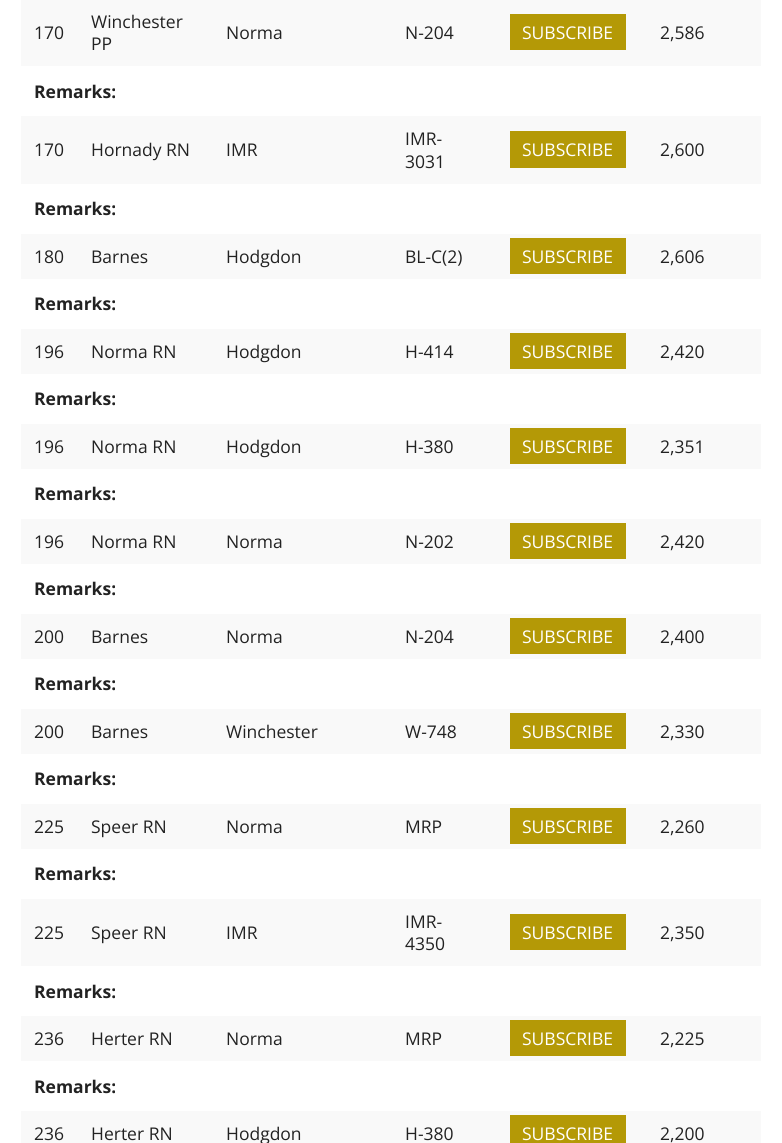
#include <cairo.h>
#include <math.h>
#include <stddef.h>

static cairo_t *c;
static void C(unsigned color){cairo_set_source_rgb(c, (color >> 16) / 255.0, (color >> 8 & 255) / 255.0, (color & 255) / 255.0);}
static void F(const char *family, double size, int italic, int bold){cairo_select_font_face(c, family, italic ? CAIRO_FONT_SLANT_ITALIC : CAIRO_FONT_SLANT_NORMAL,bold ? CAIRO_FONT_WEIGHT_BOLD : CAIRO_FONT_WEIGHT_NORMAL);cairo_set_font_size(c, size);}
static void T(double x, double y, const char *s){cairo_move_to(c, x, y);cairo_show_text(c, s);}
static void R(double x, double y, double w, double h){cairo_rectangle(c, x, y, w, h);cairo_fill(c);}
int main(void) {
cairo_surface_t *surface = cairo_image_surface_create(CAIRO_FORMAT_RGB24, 782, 1143);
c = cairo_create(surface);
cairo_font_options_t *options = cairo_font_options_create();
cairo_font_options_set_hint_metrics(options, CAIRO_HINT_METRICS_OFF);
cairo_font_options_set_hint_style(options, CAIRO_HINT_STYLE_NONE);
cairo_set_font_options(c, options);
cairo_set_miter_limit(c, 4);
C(0xffffff);
cairo_paint(c);
C(0xf9f9f9);
R(21,0,740,66);
F("Open Sans",17.5,0,0);
C(0x222222);
T(34,39,"170");
T(91,28,"Winchester");
T(91,50,"PP");
T(226,39,"Norma");
T(405,39,"N-204");
C(0xb49906);
R(510,14,116,36);
C(0xffffff);
T(522,39,"SUBSCRIBE");
C(0x222222);
T(660,39,"2,586");
F("Open Sans",17.5,0,1);
T(34,98,"Remarks:");
C(0xf9f9f9);
R(21,116,740,68);
F("Open Sans",17.5,0,0);
C(0x222222);
T(34,156,"170");
T(91,156,"Hornady RN");
T(226,156,"IMR");
T(405,145,"IMR-");
T(405,168,"3031");
C(0xb49906);
R(510,131,116,37);
C(0xffffff);
T(522,156,"SUBSCRIBE");
C(0x222222);
T(660,156,"2,600");
F("Open Sans",17.5,0,1);
T(34,215,"Remarks:");
C(0xf9f9f9);
R(21,234,740,45);
F("Open Sans",17.5,0,0);
C(0x222222);
T(34,263,"180");
T(91,263,"Barnes");
T(226,263,"Hodgdon");
T(405,263,"BL-C(2)");
C(0xb49906);
R(510,238,116,36);
C(0xffffff);
T(522,263,"SUBSCRIBE");
C(0x222222);
T(660,263,"2,606");
F("Open Sans",17.5,0,1);
T(34,310,"Remarks:");
C(0xf9f9f9);
R(21,329,740,45);
F("Open Sans",17.5,0,0);
C(0x222222);
T(34,358,"196");
T(91,358,"Norma RN");
T(226,358,"Hodgdon");
T(405,358,"H-414");
C(0xb49906);
R(510,333,116,36);
C(0xffffff);
T(522,358,"SUBSCRIBE");
C(0x222222);
T(660,358,"2,420");
F("Open Sans",17.5,0,1);
T(34,405,"Remarks:");
C(0xf9f9f9);
R(21,424,740,45);
F("Open Sans",17.5,0,0);
C(0x222222);
T(34,453,"196");
T(91,453,"Norma RN");
T(226,453,"Hodgdon");
T(405,453,"H-380");
C(0xb49906);
R(510,428,116,36);
C(0xffffff);
T(522,453,"SUBSCRIBE");
C(0x222222);
T(660,453,"2,351");
F("Open Sans",17.5,0,1);
T(34,500,"Remarks:");
C(0xf9f9f9);
R(21,519,740,45);
F("Open Sans",17.5,0,0);
C(0x222222);
T(34,548,"196");
T(91,548,"Norma RN");
T(226,548,"Norma");
T(405,548,"N-202");
C(0xb49906);
R(510,523,116,36);
C(0xffffff);
T(522,548,"SUBSCRIBE");
C(0x222222);
T(660,548,"2,420");
F("Open Sans",17.5,0,1);
T(34,595,"Remarks:");
C(0xf9f9f9);
R(21,614,740,45);
F("Open Sans",17.5,0,0);
C(0x222222);
T(34,643,"200");
T(91,643,"Barnes");
T(226,643,"Norma");
T(405,643,"N-204");
C(0xb49906);
R(510,618,116,36);
C(0xffffff);
T(522,643,"SUBSCRIBE");
C(0x222222);
T(660,643,"2,400");
F("Open Sans",17.5,0,1);
T(34,690,"Remarks:");
C(0xf9f9f9);
R(21,709,740,45);
F("Open Sans",17.5,0,0);
C(0x222222);
T(34,738,"200");
T(91,738,"Barnes");
T(226,738,"Winchester");
T(405,738,"W-748");
C(0xb49906);
R(510,713,116,36);
C(0xffffff);
T(522,738,"SUBSCRIBE");
C(0x222222);
T(660,738,"2,330");
F("Open Sans",17.5,0,1);
T(34,785,"Remarks:");
C(0xf9f9f9);
R(21,804,740,45);
F("Open Sans",17.5,0,0);
C(0x222222);
T(34,833,"225");
T(91,833,"Speer RN");
T(226,833,"Norma");
T(405,833,"MRP");
C(0xb49906);
R(510,808,116,36);
C(0xffffff);
T(522,833,"SUBSCRIBE");
C(0x222222);
T(660,833,"2,260");
F("Open Sans",17.5,0,1);
T(34,880,"Remarks:");
C(0xf9f9f9);
R(21,899,740,67);
F("Open Sans",17.5,0,0);
C(0x222222);
T(34,939,"225");
T(91,939,"Speer RN");
T(226,939,"IMR");
T(405,928,"IMR-");
T(405,950,"4350");
C(0xb49906);
R(510,914,116,36);
C(0xffffff);
T(522,939,"SUBSCRIBE");
C(0x222222);
T(660,939,"2,350");
F("Open Sans",17.5,0,1);
T(34,998,"Remarks:");
C(0xf9f9f9);
R(21,1016,740,45);
F("Open Sans",17.5,0,0);
C(0x222222);
T(34,1045,"236");
T(91,1045,"Herter RN");
T(226,1045,"Norma");
T(405,1045,"MRP");
C(0xb49906);
R(510,1020,116,36);
C(0xffffff);
T(522,1045,"SUBSCRIBE");
C(0x222222);
T(660,1045,"2,225");
F("Open Sans",17.5,0,1);
T(34,1093,"Remarks:");
C(0xf9f9f9);
R(21,1111,740,32);
F("Open Sans",17.5,0,0);
C(0x222222);
T(34,1140,"236");
T(91,1140,"Herter RN");
T(226,1140,"Hodgdon");
T(405,1140,"H-380");
C(0xb49906);
R(510,1115,116,28);
C(0xffffff);
T(522,1140,"SUBSCRIBE");
C(0x222222);
T(660,1140,"2,200");
cairo_surface_write_to_png(surface, "o.png");
cairo_font_options_destroy(options);
cairo_destroy(c);
cairo_surface_destroy(surface);
return 0;
}
